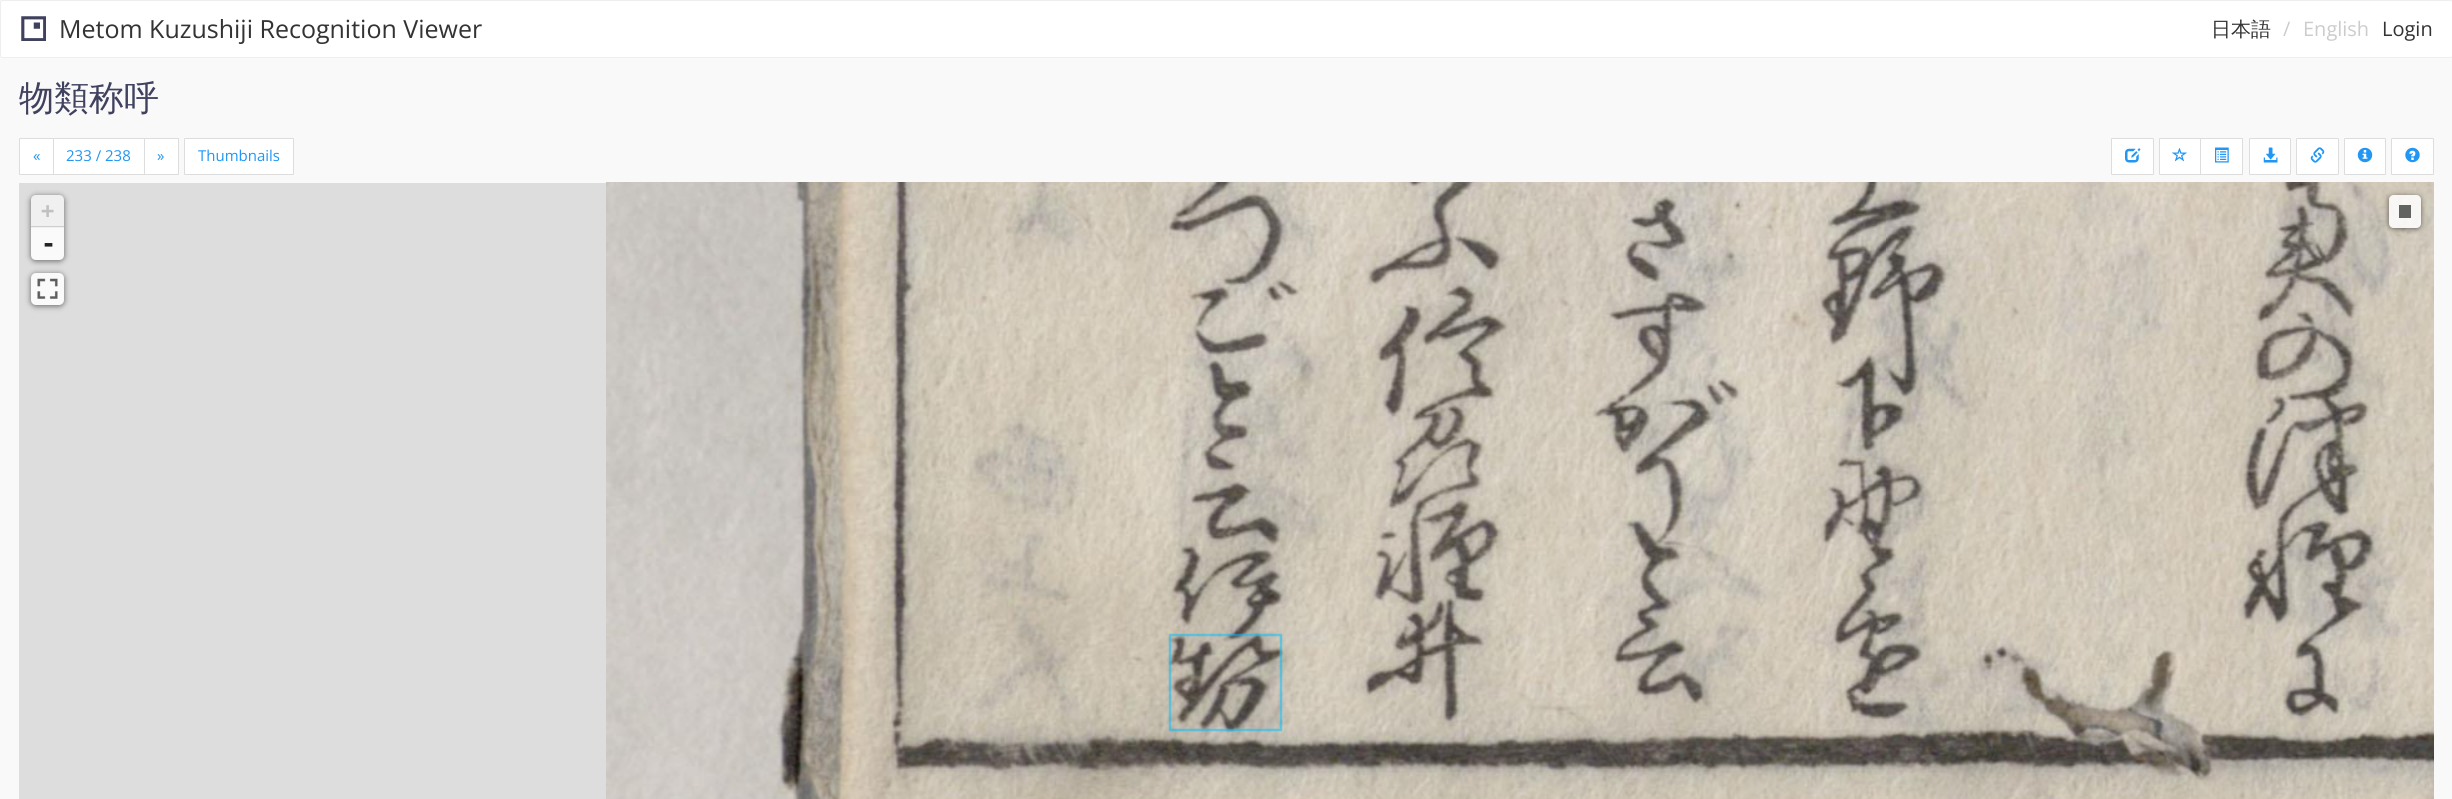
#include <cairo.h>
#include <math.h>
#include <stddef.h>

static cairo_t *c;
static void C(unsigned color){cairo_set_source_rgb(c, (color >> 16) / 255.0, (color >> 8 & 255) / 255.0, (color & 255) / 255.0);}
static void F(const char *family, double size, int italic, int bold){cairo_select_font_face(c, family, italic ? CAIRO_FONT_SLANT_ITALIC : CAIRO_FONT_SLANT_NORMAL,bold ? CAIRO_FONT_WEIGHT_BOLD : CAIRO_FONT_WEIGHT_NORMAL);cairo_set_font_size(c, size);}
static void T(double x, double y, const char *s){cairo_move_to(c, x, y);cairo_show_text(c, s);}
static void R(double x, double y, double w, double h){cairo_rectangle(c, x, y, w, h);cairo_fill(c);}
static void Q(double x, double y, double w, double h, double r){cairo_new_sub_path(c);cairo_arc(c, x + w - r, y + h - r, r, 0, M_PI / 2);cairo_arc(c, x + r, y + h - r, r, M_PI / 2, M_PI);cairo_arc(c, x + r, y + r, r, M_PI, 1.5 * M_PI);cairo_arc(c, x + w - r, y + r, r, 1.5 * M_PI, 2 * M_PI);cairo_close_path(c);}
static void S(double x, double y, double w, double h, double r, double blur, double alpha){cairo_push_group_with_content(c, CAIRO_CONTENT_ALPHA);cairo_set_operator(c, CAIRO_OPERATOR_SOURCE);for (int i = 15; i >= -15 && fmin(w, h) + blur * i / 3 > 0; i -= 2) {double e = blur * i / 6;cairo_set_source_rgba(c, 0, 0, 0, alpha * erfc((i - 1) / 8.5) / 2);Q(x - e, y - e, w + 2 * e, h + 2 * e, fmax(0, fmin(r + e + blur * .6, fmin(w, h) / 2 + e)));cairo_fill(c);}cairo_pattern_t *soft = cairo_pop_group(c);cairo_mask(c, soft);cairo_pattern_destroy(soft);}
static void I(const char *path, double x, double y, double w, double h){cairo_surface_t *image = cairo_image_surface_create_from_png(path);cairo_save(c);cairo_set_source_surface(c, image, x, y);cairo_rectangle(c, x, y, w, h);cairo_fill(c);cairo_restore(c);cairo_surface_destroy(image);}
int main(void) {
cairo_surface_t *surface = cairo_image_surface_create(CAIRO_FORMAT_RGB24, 2452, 799);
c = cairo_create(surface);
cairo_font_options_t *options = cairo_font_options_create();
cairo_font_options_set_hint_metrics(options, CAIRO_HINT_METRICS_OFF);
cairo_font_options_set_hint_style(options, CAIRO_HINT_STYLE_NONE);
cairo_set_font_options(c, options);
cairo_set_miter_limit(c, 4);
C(0xf9f9f9);
cairo_paint(c);
C(0xffffff);
Q(.5,.5,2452,57,2);
cairo_fill_preserve(c);
C(0xeeeeee);
cairo_set_line_width(c,1);
cairo_stroke(c);
I("1.png",21,16,25,25);
F("Open Sans",25,0,0);
C(0x333333);
T(59,38,"Metom Kuzushiji Recognition Viewer");
F("WenQuanYi Zen Hei Medium",20,0,0);
T(2211,36,"日本語");
F("Open Sans",20,0,0);
C(0xcccccc);
T(2283,36,"/");
T(2303,36,"English");
C(0x333333);
T(2382,36,"Login");
F("WenQuanYi Zen Hei Medium",35,0,0);
C(0x3f415e);
T(19,110,"物類称呼");
C(0xffffff);
cairo_new_path(c);
cairo_move_to(c,20,138.5);
cairo_line_to(c,53.5,138.5);
cairo_line_to(c,53.5,174.5);
cairo_line_to(c,20,174.5);
cairo_curve_to(c,19.5,174.5,19.5,174.5,19.5,174);
cairo_line_to(c,19.5,139);
cairo_curve_to(c,19.5,138.5,19.5,138.5,20,138.5);
cairo_close_path(c);
cairo_fill_preserve(c);
C(0xdddddd);
cairo_stroke(c);
F("Open Sans",15,0,0);
C(0x2196f3);
T(33,161,"«");
C(0xffffff);
cairo_rectangle(c,53.5,138.5,91,36);
cairo_fill_preserve(c);
C(0xdddddd);
cairo_stroke(c);
C(0x2196f3);
T(66,161,"233 / 238");
C(0xffffff);
cairo_new_path(c);
cairo_move_to(c,144.5,138.5);
cairo_line_to(c,178,138.5);
cairo_curve_to(c,178.5,138.5,178.5,138.5,178.5,139);
cairo_line_to(c,178.5,174);
cairo_curve_to(c,178.5,174.5,178.5,174.5,178,174.5);
cairo_line_to(c,144.5,174.5);
cairo_close_path(c);
cairo_fill_preserve(c);
C(0xdddddd);
cairo_stroke(c);
C(0x2196f3);
T(157,161,"»");
C(0xffffff);
Q(184.5,138.5,109,36,.5);
cairo_fill_preserve(c);
C(0xdddddd);
cairo_stroke(c);
C(0x2196f3);
T(198,161,"Thumbnails");
C(0xffffff);
Q(2111.5,138.5,42,36,.5);
cairo_fill_preserve(c);
C(0xdddddd);
cairo_stroke(c);
I("2.png",2125,148,16,15);
C(0xffffff);
cairo_new_path(c);
cairo_move_to(c,2160,138.5);
cairo_line_to(c,2200.5,138.5);
cairo_line_to(c,2200.5,174.5);
cairo_line_to(c,2160,174.5);
cairo_curve_to(c,2159.5,174.5,2159.5,174.5,2159.5,174);
cairo_line_to(c,2159.5,139);
cairo_curve_to(c,2159.5,138.5,2159.5,138.5,2160,138.5);
cairo_close_path(c);
cairo_fill_preserve(c);
C(0xdddddd);
cairo_stroke(c);
I("3.png",2172,148,15,14);
C(0xffffff);
cairo_new_path(c);
cairo_move_to(c,2200.5,138.5);
cairo_line_to(c,2242,138.5);
cairo_curve_to(c,2242.5,138.5,2242.5,138.5,2242.5,139);
cairo_line_to(c,2242.5,174);
cairo_curve_to(c,2242.5,174.5,2242.5,174.5,2242,174.5);
cairo_line_to(c,2200.5,174.5);
cairo_close_path(c);
cairo_fill_preserve(c);
C(0xdddddd);
cairo_stroke(c);
I("4.png",2215,147,14,16);
C(0xffffff);
Q(2249.5,138.5,41,36,.5);
cairo_fill_preserve(c);
C(0xdddddd);
cairo_stroke(c);
I("5.png",2263,147,15,16);
C(0xffffff);
Q(2296.5,138.5,42,36,.5);
cairo_fill_preserve(c);
C(0xdddddd);
cairo_stroke(c);
I("6.png",2310,147,15,16);
C(0xffffff);
Q(2344.5,138.5,41,36,.5);
cairo_fill_preserve(c);
C(0xdddddd);
cairo_stroke(c);
I("7.png",2357,147,16,16);
C(0xffffff);
Q(2391.5,138.5,42,36,.5);
cairo_fill_preserve(c);
C(0xdddddd);
cairo_stroke(c);
I("8.png",2405,147,15,16);
R(19,183,587,616);
C(0x232323);
S(31,196,33,65,5,3,.65);
C(0xf0f0f0);
cairo_new_path(c);
cairo_move_to(c,36,195);
cairo_line_to(c,59,195);
cairo_curve_to(c,62,195,64,197,64,200);
cairo_line_to(c,64,228);
cairo_line_to(c,31,228);
cairo_line_to(c,31,200);
cairo_curve_to(c,31,197,33,195,36,195);
cairo_close_path(c);
cairo_fill(c);
C(0xcfcfcf);
R(31,226,33,1);
F("DejaVu Sans Mono",22,0,1);
C(0xc0c0c0);
T(41,218,"+");
C(0xfafafa);
cairo_new_path(c);
cairo_move_to(c,31,228);
cairo_line_to(c,64,228);
cairo_line_to(c,64,255);
cairo_curve_to(c,64,258,62,260,59,260);
cairo_line_to(c,36,260);
cairo_curve_to(c,33,260,31,258,31,255);
cairo_close_path(c);
cairo_fill(c);
F("DejaVu Sans Mono",25,0,1);
C(0x232323);
T(41,252,"-");
C(0x232323);
S(31,274,33,32,5,3,.65);
C(0xfafafa);
Q(31,273,33,32,5);
cairo_fill(c);
I("9.png",37,278,21,21);
I("11.png",1886,182,548,617);
cairo_save(c);
cairo_set_fill_rule(c,CAIRO_FILL_RULE_EVEN_ODD);
cairo_new_path(c);
cairo_move_to(c,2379,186);
cairo_line_to(c,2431,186);
cairo_line_to(c,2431,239);
cairo_line_to(c,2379,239);
cairo_close_path(c);
cairo_move_to(c,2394,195);
cairo_line_to(c,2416,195);
cairo_curve_to(c,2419,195,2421,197,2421,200);
cairo_line_to(c,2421,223);
cairo_curve_to(c,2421,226,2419,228,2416,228);
cairo_line_to(c,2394,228);
cairo_curve_to(c,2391,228,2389,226,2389,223);
cairo_line_to(c,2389,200);
cairo_curve_to(c,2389,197,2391,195,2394,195);
cairo_close_path(c);
cairo_clip(c);
C(0x000000);
S(2389,196,32,33,5,3,.55);
cairo_restore(c);
cairo_set_source_rgba(c,1,1,1,0.84);
Q(2389,195,32,33,5);
cairo_fill(c);
cairo_set_source_rgba(c,0.275,0.275,0.275,0.84);
R(2399,205,12,13);
I("10.png",606,182,1280,617);
cairo_new_path(c);
cairo_move_to(c,1170,730);
cairo_line_to(c,1170,635);
cairo_line_to(c,1281,635);
cairo_line_to(c,1281,730);
cairo_close_path(c);
cairo_set_source_rgba(c,0,0.749,1,0.5);
cairo_set_line_width(c,2.5);
cairo_set_line_cap(c,CAIRO_LINE_CAP_ROUND);
cairo_set_line_join(c,CAIRO_LINE_JOIN_ROUND);
cairo_stroke(c);
cairo_surface_write_to_png(surface, "o.png");
cairo_font_options_destroy(options);
cairo_destroy(c);
cairo_surface_destroy(surface);
return 0;
}
